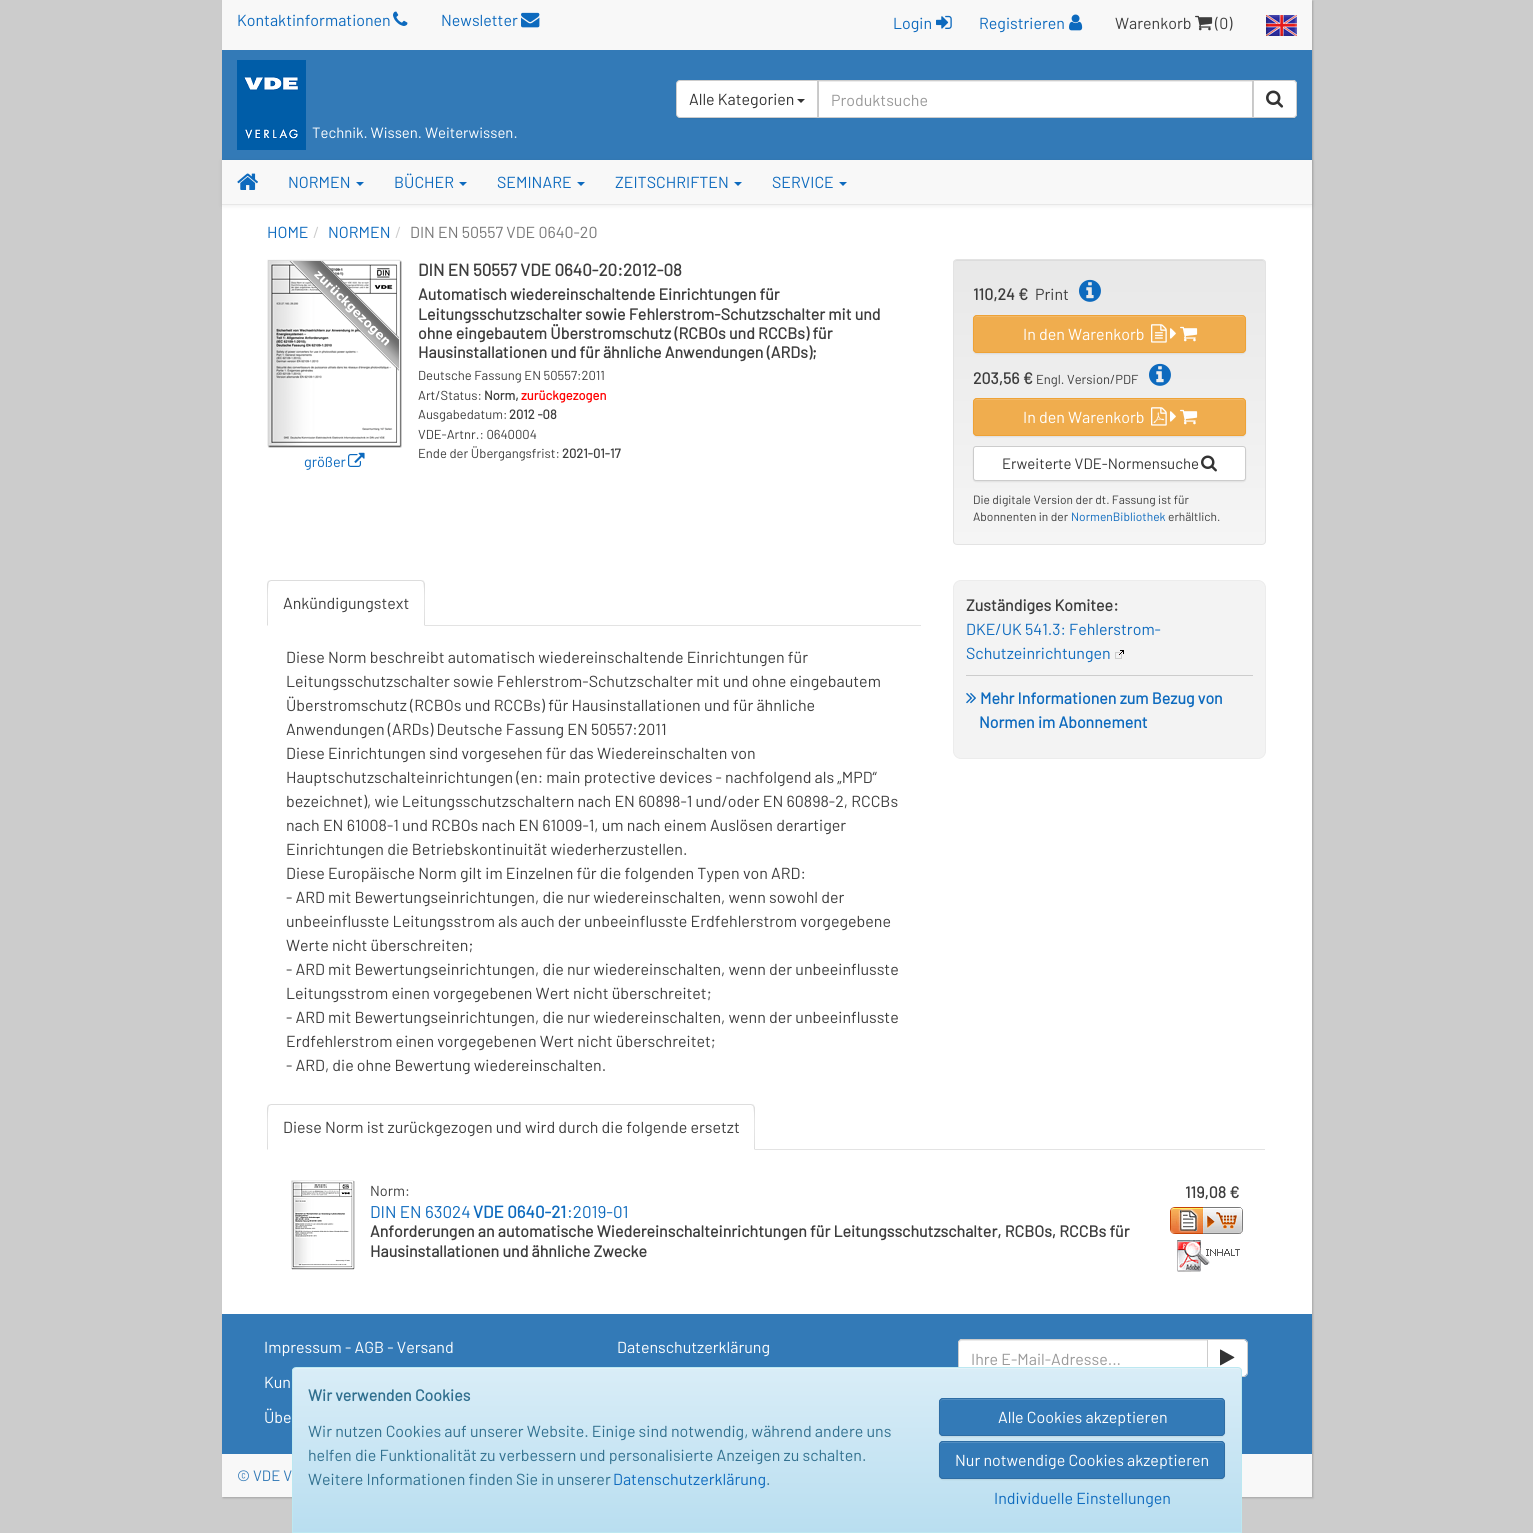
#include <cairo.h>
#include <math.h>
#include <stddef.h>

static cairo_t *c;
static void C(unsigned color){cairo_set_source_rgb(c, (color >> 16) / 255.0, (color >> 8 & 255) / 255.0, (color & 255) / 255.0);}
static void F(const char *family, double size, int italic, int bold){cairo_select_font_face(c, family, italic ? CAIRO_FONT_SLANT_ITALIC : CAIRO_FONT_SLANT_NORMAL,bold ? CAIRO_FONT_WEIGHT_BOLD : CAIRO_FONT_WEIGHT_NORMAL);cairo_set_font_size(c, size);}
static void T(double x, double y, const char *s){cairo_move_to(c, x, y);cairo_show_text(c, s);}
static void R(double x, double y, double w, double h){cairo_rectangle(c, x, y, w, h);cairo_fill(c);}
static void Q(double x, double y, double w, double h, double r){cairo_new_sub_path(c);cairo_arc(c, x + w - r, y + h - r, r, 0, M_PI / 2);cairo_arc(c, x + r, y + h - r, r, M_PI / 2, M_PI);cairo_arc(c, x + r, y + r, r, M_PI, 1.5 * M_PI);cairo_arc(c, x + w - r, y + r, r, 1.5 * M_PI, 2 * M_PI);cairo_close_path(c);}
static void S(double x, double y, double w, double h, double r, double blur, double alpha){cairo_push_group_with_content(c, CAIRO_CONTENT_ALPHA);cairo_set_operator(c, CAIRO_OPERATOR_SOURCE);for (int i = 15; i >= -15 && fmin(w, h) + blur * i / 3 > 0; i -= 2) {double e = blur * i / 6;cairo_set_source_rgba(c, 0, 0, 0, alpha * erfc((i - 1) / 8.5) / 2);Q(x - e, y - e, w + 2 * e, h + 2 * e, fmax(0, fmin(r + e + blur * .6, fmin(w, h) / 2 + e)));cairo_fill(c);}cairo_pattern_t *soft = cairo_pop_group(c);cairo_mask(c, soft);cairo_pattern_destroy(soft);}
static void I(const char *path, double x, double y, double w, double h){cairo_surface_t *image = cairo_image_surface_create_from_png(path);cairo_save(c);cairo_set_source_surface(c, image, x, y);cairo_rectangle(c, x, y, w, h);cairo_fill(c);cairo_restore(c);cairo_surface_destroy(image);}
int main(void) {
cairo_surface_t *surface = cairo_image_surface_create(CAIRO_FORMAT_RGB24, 1533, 1533);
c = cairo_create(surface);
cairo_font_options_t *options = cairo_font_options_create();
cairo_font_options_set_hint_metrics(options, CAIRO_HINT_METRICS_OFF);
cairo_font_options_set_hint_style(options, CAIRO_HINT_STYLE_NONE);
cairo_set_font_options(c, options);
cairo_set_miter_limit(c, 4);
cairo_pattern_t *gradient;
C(0xcccccc);
cairo_paint(c);
C(0x000000);
S(223,1,1090,1497,0,1,.2);
C(0xffffff);
R(222,205,1090,1109);
C(0xf8f8f8);
R(222,0,1090,50);
F("Barlow",16,0,0);
C(0x0d6abe);
T(237,26,"Kontaktinformationen");
I("1.png",393,11,15,15);
T(441,26,"Newsletter");
I("2.png",521,12,19,16);
T(893,29,"Login");
I("3.png",936,15,16,14);
T(979,29,"Registrieren");
I("4.png",1069,14,14,17);
C(0x3d3d3d);
T(1115,29,"Warenkorb");
I("5.png",1195,15,18,16);
T(1215,29,"(0)");
I("6.png",1266,15,31,21);
C(0x337ab7);
R(222,50,1090,110);
C(0xffffff);
Q(677,80,620,38,4);
cairo_fill(c);
C(0xececec);
R(819,81,433,1);
cairo_rectangle(c,818.5,80.5,434,37);
C(0xcccccc);
cairo_set_line_width(c,1);
cairo_stroke(c);
C(0x000000);
S(676,81,142,38,4,.5,.07);
C(0xffffff);
cairo_new_path(c);
cairo_move_to(c,680,80.5);
cairo_line_to(c,817.5,80.5);
cairo_line_to(c,817.5,117.5);
cairo_line_to(c,680,117.5);
cairo_curve_to(c,678,117.5,676.5,116,676.5,114);
cairo_line_to(c,676.5,84);
cairo_curve_to(c,676.5,82,678,80.5,680,80.5);
cairo_close_path(c);
cairo_fill_preserve(c);
C(0xcccccc);
cairo_stroke(c);
C(0x333333);
T(689,105,"Alle Kategorien");
cairo_new_path(c);
cairo_move_to(c,797,99);
cairo_line_to(c,805,99);
cairo_line_to(c,801,103);
cairo_close_path(c);
cairo_fill(c);
C(0x999999);
T(831,106,"Produktsuche");
C(0x000000);
S(1253,81,44,38,4,.5,.07);
C(0xffffff);
cairo_new_path(c);
cairo_move_to(c,1253.5,80.5);
cairo_line_to(c,1293,80.5);
cairo_curve_to(c,1295,80.5,1296.5,82,1296.5,84);
cairo_line_to(c,1296.5,114);
cairo_curve_to(c,1296.5,116,1295,117.5,1293,117.5);
cairo_line_to(c,1253.5,117.5);
cairo_close_path(c);
cairo_fill_preserve(c);
C(0xcccccc);
cairo_stroke(c);
I("7.png",1266,90,18,18);
I("8.png",237,60,69,90);
F("Barlow",14.9,0,0);
C(0xffffff);
T(312,138,"Technik. Wissen. Weiterwissen.");
C(0x000000);
S(222,161,1090,45,0,2.5,.07);
C(0xe7e7e7);
R(222,204,1090,1);
C(0xf8f8f8);
R(222,160,1090,44);
I("9.png",237,173,21,17);
F("Barlow",16,0,0);
C(0x0d6abe);
T(288,188,"NORMEN");
cairo_new_path(c);
cairo_move_to(c,356,182);
cairo_line_to(c,364,182);
cairo_line_to(c,360,186);
cairo_close_path(c);
cairo_fill(c);
T(394,188,"BÜCHER");
cairo_new_path(c);
cairo_move_to(c,459,182);
cairo_line_to(c,467,182);
cairo_line_to(c,463,186);
cairo_close_path(c);
cairo_fill(c);
T(497,188,"SEMINARE");
cairo_new_path(c);
cairo_move_to(c,577,182);
cairo_line_to(c,585,182);
cairo_line_to(c,581,186);
cairo_close_path(c);
cairo_fill(c);
T(615,188,"ZEITSCHRIFTEN");
cairo_new_path(c);
cairo_move_to(c,734,182);
cairo_line_to(c,742,182);
cairo_line_to(c,738,186);
cairo_close_path(c);
cairo_fill(c);
T(772,188,"SERVICE");
cairo_new_path(c);
cairo_move_to(c,839,182);
cairo_line_to(c,847,182);
cairo_line_to(c,843,186);
cairo_close_path(c);
cairo_fill(c);
T(267,238,"HOME");
C(0xcccccc);
T(313,238,"/");
C(0x0d6abe);
T(328,238,"NORMEN");
C(0xcccccc);
T(395,238,"/");
C(0x777777);
T(410,238,"DIN EN 50557 VDE 0640-20");
F("Barlow",17,0,1);
C(0x3d3d3d);
T(418,276,"DIN EN 50557 VDE 0640-20:2012-08");
F("Barlow",16,0,1);
T(418,300,"Automatisch wiedereinschaltende Einrichtungen für");
T(418,320,"Leitungsschutzschalter sowie Fehlerstrom-Schutzschalter mit und");
T(418,339,"ohne eingebautem Überstromschutz (RCBOs und RCCBs) für");
T(418,358,"Hausinstallationen und für ähnliche Anwendungen (ARDs);");
F("Barlow",13,0,0);
T(418,380,"Deutsche Fassung EN 50557:2011");
T(418,400,"Art/Status:");
F("Barlow",13,0,1);
T(484,400,"Norm,");
C(0xff0000);
T(521,400,"zurückgezogen");
F("Barlow",13,0,0);
C(0x3d3d3d);
T(418,419,"Ausgabedatum:");
F("Barlow",13,0,1);
T(509,419,"2012 -08");
F("Barlow",13,0,0);
T(418,439,"VDE-Artnr.: 0640004");
T(418,458,"Ende der Übergangsfrist:");
F("Barlow",13,0,1);
T(562,458,"2021-01-17");
I("10.png",267,259,135,189);
F("Barlow",14.5,0,0);
C(0x0d6abe);
T(304,467,"größer");
I("11.png",348,452,17,15);
cairo_save(c);
Q(953,259,313,286,4);
cairo_clip(c);
gradient = cairo_pattern_create_linear(1110,260,1110,544);
cairo_pattern_add_color_stop_rgba(gradient,0,0.91,0.91,0.91,1);
cairo_pattern_add_color_stop_rgba(gradient,1,0.961,0.961,0.961,1);
cairo_set_source(c,gradient);
cairo_pattern_destroy(gradient);
R(953,260,313,284);
cairo_restore(c);
C(0xdcdcdc);
cairo_new_path(c);
cairo_move_to(c,957,261);
cairo_line_to(c,1262,261);
cairo_curve_to(c,1264,261,1265,262,1265,264);
cairo_line_to(c,1264,261);
cairo_line_to(c,1263,260);
cairo_line_to(c,957,260);
cairo_curve_to(c,955,260,954,262,954,264);
cairo_curve_to(c,954,262,955,261,957,261);
cairo_close_path(c);
cairo_fill(c);
Q(953.5,259.5,312,285,3.5);
C(0xe3e3e3);
cairo_stroke(c);
F("Barlow",16,0,1);
C(0x3d3d3d);
T(973,300,"110,24 €");
F("Barlow",16,0,0);
T(1035,300,"Print");
I("12.png",1079,279,22,23);
C(0x000000);
S(973,316,273,38,4,.5,.07);
C(0xf0ad4e);
Q(973,315,273,38,4);
cairo_fill(c);
C(0xf2b969);
cairo_new_path(c);
cairo_move_to(c,977,317);
cairo_line_to(c,1242,317);
cairo_curve_to(c,1244,317,1245,318,1245,320);
cairo_line_to(c,1245,319);
cairo_curve_to(c,1245,317,1244,316,1242,316);
cairo_line_to(c,977,316);
cairo_curve_to(c,975,316,974,317,974,319);
cairo_line_to(c,974,320);
cairo_curve_to(c,974,318,975,317,977,317);
cairo_close_path(c);
cairo_fill(c);
Q(973.5,315.5,272,37,3.5);
C(0xeea236);
cairo_stroke(c);
C(0xffffff);
T(1023,340,"In den Warenkorb");
I("13.png",1151,324,16,19);
I("14.png",1170,328,6,11);
I("15.png",1180,326,18,16);
F("Barlow",16,0,1);
C(0x3d3d3d);
T(973,384,"203,56 €");
F("Barlow",13,0,0);
T(1036,384,"Engl. Version/PDF");
I("16.png",1149,363,22,23);
C(0x000000);
S(973,399,273,38,4,.5,.07);
C(0xf0ad4e);
Q(973,398,273,38,4);
cairo_fill(c);
C(0xf2b969);
cairo_new_path(c);
cairo_move_to(c,977,400);
cairo_line_to(c,1242,400);
cairo_curve_to(c,1244,400,1245,401,1245,403);
cairo_line_to(c,1245,402);
cairo_curve_to(c,1245,400,1244,399,1242,399);
cairo_line_to(c,977,399);
cairo_curve_to(c,975,399,974,400,974,402);
cairo_line_to(c,974,403);
cairo_curve_to(c,974,401,975,400,977,400);
cairo_close_path(c);
cairo_fill(c);
Q(973.5,398.5,272,37,3.5);
C(0xeea236);
cairo_stroke(c);
F("Barlow",16,0,0);
C(0xffffff);
T(1023,423,"In den Warenkorb");
I("17.png",1151,407,16,19);
I("14.png",1170,411,6,11);
I("15.png",1180,409,18,16);
C(0x000000);
S(973,447,273,35,3,.5,.07);
C(0xffffff);
Q(973.5,446.5,272,34,2.5);
cairo_fill_preserve(c);
C(0xcccccc);
cairo_stroke(c);
F("Barlow",15,0,0);
C(0x333333);
T(1002,469,"Erweiterte VDE-Normensuche");
I("18.png",1201,455,16,17);
F("Barlow",12,0,0);
C(0x3d3d3d);
T(973,504,"Die digitale Version der dt. Fassung ist für");
T(973,521,"Abonnenten in der");
C(0x0d6abe);
T(1071,521,"NormenBibliothek");
C(0x3d3d3d);
T(1168,521,"erhältlich.");
C(0xdddddd);
cairo_new_path(c);
cairo_move_to(c,271,580);
cairo_line_to(c,268,581);
cairo_line_to(c,269,582);
cairo_line_to(c,271,581);
cairo_line_to(c,421,581);
cairo_line_to(c,423,582);
cairo_line_to(c,424,581);
cairo_line_to(c,421,580);
cairo_close_path(c);
cairo_fill(c);
cairo_new_path(c);
cairo_move_to(c,425,626);
cairo_line_to(c,425,584);
cairo_curve_to(c,425,583,424,582,424,581);
cairo_line_to(c,423,582);
cairo_curve_to(c,425,584,424,620,424,625);
cairo_close_path(c);
cairo_fill(c);
cairo_new_path(c);
cairo_move_to(c,267,626);
cairo_line_to(c,268,625);
cairo_curve_to(c,268,620,267,584,269,582);
cairo_line_to(c,268,581);
cairo_line_to(c,267,584);
cairo_close_path(c);
cairo_fill(c);
F("Barlow",16,0,0);
C(0x3d3d3d);
T(283,609,"Ankündigungstext");
C(0xe3e3e3);
R(425,625,496,1);
C(0x3d3d3d);
T(286,663,"Diese Norm beschreibt automatisch wiedereinschaltende Einrichtungen für");
T(286,687,"Leitungsschutzschalter sowie Fehlerstrom-Schutzschalter mit und ohne eingebautem");
T(286,711,"Überstromschutz (RCBOs und RCCBs) für Hausinstallationen und für ähnliche");
T(286,735,"Anwendungen (ARDs) Deutsche Fassung EN 50557:2011");
T(286,759,"Diese Einrichtungen sind vorgesehen für das Wiedereinschalten von");
T(286,783,"Hauptschutzschalteinrichtungen (en: main protective devices - nachfolgend als „MPD“");
T(286,807,"bezeichnet), wie Leitungsschutzschaltern nach EN 60898-1 und/oder EN 60898-2, RCCBs");
T(286,831,"nach EN 61008-1 und RCBOs nach EN 61009-1, um nach einem Auslösen derartiger");
T(286,855,"Einrichtungen die Betriebskontinuität wiederherzustellen.");
T(286,879,"Diese Europäische Norm gilt im Einzelnen für die folgenden Typen von ARD:");
T(286,903,"- ARD mit Bewertungseinrichtungen, die nur wiedereinschalten, wenn sowohl der");
T(286,927,"unbeeinflusste Leitungsstrom als auch der unbeeinflusste Erdfehlerstrom vorgegebene");
T(286,951,"Werte nicht überschreiten;");
T(286,975,"- ARD mit Bewertungseinrichtungen, die nur wiedereinschalten, wenn der unbeeinflusste");
T(286,999,"Leitungsstrom einen vorgegebenen Wert nicht überschreitet;");
T(286,1023,"- ARD mit Bewertungseinrichtungen, die nur wiedereinschalten, wenn der unbeeinflusste");
T(286,1047,"Erdfehlerstrom einen vorgegebenen Wert nicht überschreitet;");
T(286,1071,"- ARD, die ohne Bewertung wiedereinschalten.");
C(0xf3f3f3);
Q(953.5,580.5,312,178,7.5);
cairo_fill_preserve(c);
C(0xececec);
cairo_stroke(c);
F("Barlow",16,0,1);
C(0x3d3d3d);
T(966,611,"Zuständiges Komitee:");
F("Barlow",16,0,0);
C(0x0d6abe);
T(966,635,"DKE/UK 541.3: Fehlerstrom-");
T(966,659,"Schutzeinrichtungen");
I("19.png",1115,650,9,9);
C(0xcccccc);
R(966,675,287,1);
I("20.png",966,693,10,11);
F("Barlow",16,0,1);
C(0x0d6abe);
T(980,704,"Mehr Informationen zum Bezug von");
T(979,728,"Normen im Abonnement");
C(0xdddddd);
cairo_new_path(c);
cairo_move_to(c,271,1104);
cairo_line_to(c,268,1105);
cairo_line_to(c,269,1106);
cairo_line_to(c,271,1105);
cairo_line_to(c,751,1105);
cairo_line_to(c,753,1106);
cairo_line_to(c,754,1105);
cairo_line_to(c,751,1104);
cairo_close_path(c);
cairo_fill(c);
cairo_new_path(c);
cairo_move_to(c,755,1150);
cairo_line_to(c,755,1108);
cairo_curve_to(c,755,1107,754,1106,754,1105);
cairo_line_to(c,753,1106);
cairo_curve_to(c,755,1108,754,1144,754,1149);
cairo_close_path(c);
cairo_fill(c);
cairo_new_path(c);
cairo_move_to(c,267,1150);
cairo_line_to(c,268,1149);
cairo_curve_to(c,268,1144,267,1108,269,1106);
cairo_line_to(c,268,1105);
cairo_line_to(c,267,1108);
cairo_close_path(c);
cairo_fill(c);
F("Barlow",16,0,0);
C(0x3d3d3d);
T(283,1133,"Diese Norm ist zurückgezogen und wird durch die folgende ersetzt");
C(0xe3e3e3);
R(755,1149,510,1);
I("21.png",291,1180,64,90);
F("Barlow",14.5,0,0);
C(0x3d3d3d);
T(370,1196,"Norm:");
F("Barlow",17,0,0);
C(0x0d6abe);
T(370,1218,"DIN EN 63024");
F("Barlow",17,0,1);
T(473,1218,"VDE 0640-21");
F("Barlow",17,0,0);
T(567,1218,":2019-01");
F("Barlow",16,0,1);
C(0x3d3d3d);
T(370,1237,"Anforderungen an automatische Wiedereinschalteinrichtungen für Leitungsschutzschalter, RCBOs, RCCBs für");
T(370,1257,"Hausinstallationen und ähnliche Zwecke");
T(1185,1198,"119,08 €");
I("22.png",1170,1207,73,27);
I("23.png",1177,1240,63,32);
C(0x337ab7);
R(222,1314,1090,140);
F("Barlow",16,0,0);
C(0xffffff);
T(264,1353,"Impressum - AGB - Versand");
T(264,1388,"Kun");
T(264,1423,"Übe");
T(617,1353,"Datenschutzerklärung");
cairo_new_path(c);
cairo_move_to(c,962,1339);
cairo_line_to(c,1208,1339);
cairo_line_to(c,1208,1377);
cairo_line_to(c,962,1377);
cairo_curve_to(c,960,1377,958,1375,958,1373);
cairo_line_to(c,958,1343);
cairo_curve_to(c,958,1341,960,1339,962,1339);
cairo_close_path(c);
cairo_fill(c);
C(0xececec);
cairo_new_path(c);
cairo_move_to(c,962,1341);
cairo_line_to(c,1207,1341);
cairo_line_to(c,1207,1340);
cairo_line_to(c,962,1340);
cairo_curve_to(c,960,1340,959,1342,959,1344);
cairo_curve_to(c,959,1342,960,1341,962,1341);
cairo_close_path(c);
cairo_fill(c);
cairo_new_path(c);
cairo_move_to(c,962,1339.5);
cairo_line_to(c,1207.5,1339.5);
cairo_line_to(c,1207.5,1376.5);
cairo_line_to(c,962,1376.5);
cairo_curve_to(c,960,1376.5,958.5,1375,958.5,1373);
cairo_line_to(c,958.5,1343);
cairo_curve_to(c,958.5,1341,960,1339.5,962,1339.5);
cairo_close_path(c);
C(0xcccccc);
cairo_stroke(c);
C(0x999999);
T(971,1365,"Ihre E-Mail-Adresse...");
C(0xffffff);
cairo_new_path(c);
cairo_move_to(c,1208,1340);
cairo_line_to(c,1244,1340);
cairo_curve_to(c,1245.5,1340,1247,1341.5,1247,1343);
cairo_line_to(c,1247,1373);
cairo_curve_to(c,1247,1374.5,1245.5,1376,1244,1376);
cairo_line_to(c,1208,1376);
cairo_close_path(c);
cairo_fill(c);
C(0xcccccc);
cairo_set_fill_rule(c,CAIRO_FILL_RULE_EVEN_ODD);
cairo_new_path(c);
cairo_move_to(c,1208,1339);
cairo_line_to(c,1244,1339);
cairo_curve_to(c,1246,1339,1248,1341,1248,1343);
cairo_line_to(c,1248,1373);
cairo_curve_to(c,1248,1375,1246,1377,1244,1377);
cairo_line_to(c,1208,1377);
cairo_close_path(c);
cairo_move_to(c,1208,1340);
cairo_line_to(c,1244,1340);
cairo_curve_to(c,1246,1340,1247,1341,1247,1343);
cairo_line_to(c,1247,1373);
cairo_curve_to(c,1247,1375,1246,1376,1244,1376);
cairo_line_to(c,1208,1376);
cairo_close_path(c);
cairo_fill(c);
I("24.png",1220,1349,15,17);
C(0xf8f8f8);
R(222,1454,1090,43);
F("Barlow",15,0,0);
C(0x337ab7);
T(237,1481,"© VDE V");
cairo_save(c);
cairo_set_fill_rule(c,CAIRO_FILL_RULE_WINDING);
cairo_new_path(c);
cairo_move_to(c,296,1367);
cairo_line_to(c,1238,1367);
cairo_curve_to(c,1240,1367,1242,1369,1242,1371);
cairo_line_to(c,1242,1533);
cairo_line_to(c,292,1533);
cairo_line_to(c,292,1371);
cairo_curve_to(c,292,1369,294,1367,296,1367);
cairo_close_path(c);
cairo_clip(c);
gradient = cairo_pattern_create_linear(767,1368,767,1532);
cairo_pattern_add_color_stop_rgba(gradient,0,0.851,0.929,0.969,1);
cairo_pattern_add_color_stop_rgba(gradient,1,0.725,0.871,0.941,1);
cairo_set_source(c,gradient);
cairo_pattern_destroy(gradient);
R(292,1368,950,164);
cairo_restore(c);
C(0xe3f2f9);
cairo_set_fill_rule(c,CAIRO_FILL_RULE_WINDING);
cairo_new_path(c);
cairo_move_to(c,296,1369);
cairo_line_to(c,1238,1369);
cairo_curve_to(c,1240,1369,1241,1370,1241,1372);
cairo_curve_to(c,1241,1370,1240,1368,1238,1368);
cairo_line_to(c,296,1368);
cairo_curve_to(c,294,1368,293,1370,293,1372);
cairo_curve_to(c,293,1370,294,1369,296,1369);
cairo_close_path(c);
cairo_fill(c);
cairo_new_path(c);
cairo_move_to(c,296,1367.5);
cairo_line_to(c,1238,1367.5);
cairo_curve_to(c,1240,1367.5,1241.5,1369,1241.5,1371);
cairo_line_to(c,1241.5,1532.5);
cairo_line_to(c,292.5,1532.5);
cairo_line_to(c,292.5,1371);
cairo_curve_to(c,292.5,1369,294,1367.5,296,1367.5);
cairo_close_path(c);
C(0xbce8f1);
cairo_stroke(c);
F("Barlow",16,0,1);
C(0x31708f);
T(308,1401,"Wir verwenden Cookies");
F("Barlow",16,0,0);
T(308,1437,"Wir nutzen Cookies auf unserer Website. Einige sind notwendig, während andere uns");
T(308,1461,"helfen die Funktionalität zu verbessern und personalisierte Anzeigen zu schalten.");
T(308,1485,"Weitere Informationen finden Sie in unserer");
C(0x0d6abe);
T(613,1485,"Datenschutzerklärung");
C(0x31708f);
T(766,1485,".");
C(0x000000);
S(939,1399,286,38,4,.5,.07);
C(0x337ab7);
Q(939,1398,286,38,4);
cairo_fill(c);
C(0x528ec2);
cairo_new_path(c);
cairo_move_to(c,943,1400);
cairo_line_to(c,1221,1400);
cairo_curve_to(c,1223,1400,1224,1401,1224,1403);
cairo_line_to(c,1224,1402);
cairo_curve_to(c,1224,1400,1223,1399,1221,1399);
cairo_line_to(c,943,1399);
cairo_curve_to(c,941,1399,940,1400,940,1402);
cairo_line_to(c,940,1403);
cairo_curve_to(c,940,1401,941,1400,943,1400);
cairo_close_path(c);
cairo_fill(c);
Q(939.5,1398.5,285,37,3.5);
C(0x2e6da4);
cairo_stroke(c);
C(0xffffff);
T(998,1423,"Alle Cookies akzeptieren");
C(0x000000);
S(939,1442,286,38,4,.5,.07);
C(0x337ab7);
Q(939,1441,286,38,4);
cairo_fill(c);
C(0x528ec2);
cairo_new_path(c);
cairo_move_to(c,943,1443);
cairo_line_to(c,1221,1443);
cairo_curve_to(c,1223,1443,1224,1444,1224,1446);
cairo_line_to(c,1224,1445);
cairo_curve_to(c,1224,1443,1223,1442,1221,1442);
cairo_line_to(c,943,1442);
cairo_curve_to(c,941,1442,940,1443,940,1445);
cairo_line_to(c,940,1446);
cairo_curve_to(c,940,1444,941,1443,943,1443);
cairo_close_path(c);
cairo_fill(c);
Q(939.5,1441.5,285,37,3.5);
C(0x2e6da4);
cairo_stroke(c);
C(0xffffff);
T(955,1466,"Nur notwendige Cookies akzeptieren");
C(0x0d6abe);
T(994,1504,"Individuelle Einstellungen");
cairo_surface_write_to_png(surface, "o.png");
cairo_font_options_destroy(options);
cairo_destroy(c);
cairo_surface_destroy(surface);
return 0;
}
